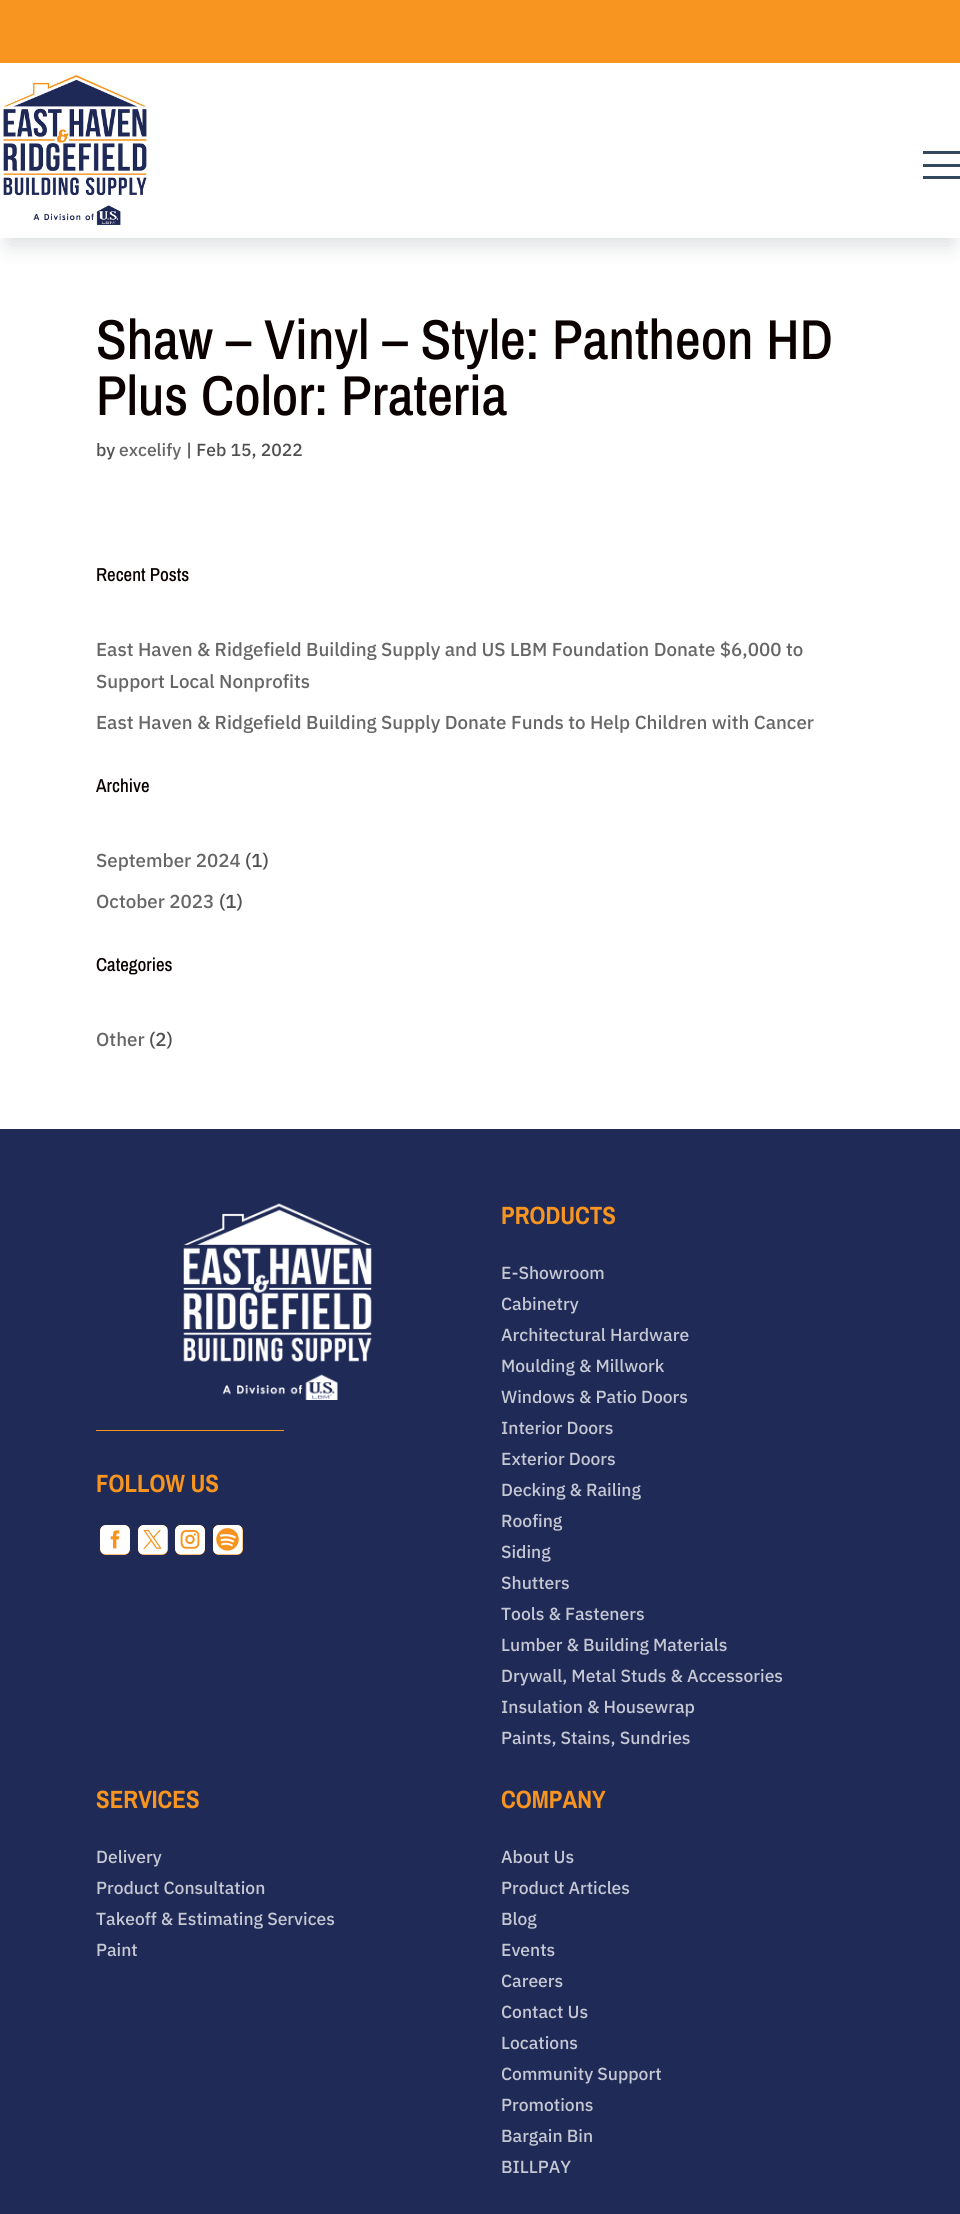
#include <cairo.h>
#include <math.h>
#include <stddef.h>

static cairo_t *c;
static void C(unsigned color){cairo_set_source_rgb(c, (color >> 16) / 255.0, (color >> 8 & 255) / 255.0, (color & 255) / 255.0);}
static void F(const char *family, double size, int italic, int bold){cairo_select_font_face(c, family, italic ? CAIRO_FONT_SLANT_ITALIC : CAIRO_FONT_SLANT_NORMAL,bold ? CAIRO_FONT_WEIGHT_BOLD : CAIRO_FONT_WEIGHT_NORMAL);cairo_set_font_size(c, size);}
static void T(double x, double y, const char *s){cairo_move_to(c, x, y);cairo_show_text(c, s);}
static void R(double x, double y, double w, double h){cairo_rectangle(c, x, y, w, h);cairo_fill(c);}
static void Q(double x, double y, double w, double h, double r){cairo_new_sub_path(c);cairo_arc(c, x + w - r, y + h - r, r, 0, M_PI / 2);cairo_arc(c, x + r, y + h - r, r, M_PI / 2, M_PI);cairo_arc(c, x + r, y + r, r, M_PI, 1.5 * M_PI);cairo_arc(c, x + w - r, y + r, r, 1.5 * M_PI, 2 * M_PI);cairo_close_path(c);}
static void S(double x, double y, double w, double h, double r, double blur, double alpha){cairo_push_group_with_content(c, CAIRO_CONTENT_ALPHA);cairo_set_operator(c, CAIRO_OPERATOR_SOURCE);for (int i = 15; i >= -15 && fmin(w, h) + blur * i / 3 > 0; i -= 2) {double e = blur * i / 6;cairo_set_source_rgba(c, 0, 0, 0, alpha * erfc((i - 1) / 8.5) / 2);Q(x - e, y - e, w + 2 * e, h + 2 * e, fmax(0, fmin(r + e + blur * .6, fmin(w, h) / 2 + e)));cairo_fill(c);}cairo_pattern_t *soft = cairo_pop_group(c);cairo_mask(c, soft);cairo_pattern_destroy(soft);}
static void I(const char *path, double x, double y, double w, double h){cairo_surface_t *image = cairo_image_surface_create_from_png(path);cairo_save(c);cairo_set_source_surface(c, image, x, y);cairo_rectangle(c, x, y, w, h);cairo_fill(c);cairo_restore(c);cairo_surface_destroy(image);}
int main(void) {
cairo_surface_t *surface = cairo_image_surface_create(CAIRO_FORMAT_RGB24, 960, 2214);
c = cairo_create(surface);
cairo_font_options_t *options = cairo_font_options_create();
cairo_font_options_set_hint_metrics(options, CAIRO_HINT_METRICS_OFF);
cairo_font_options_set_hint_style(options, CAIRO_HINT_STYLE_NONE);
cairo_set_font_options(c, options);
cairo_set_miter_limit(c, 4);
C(0xffffff);
cairo_paint(c);
C(0x0c232d);
S(8,85,945,160,0,11,.15);
C(0xf79520);
R(0,0,960,63);
C(0xffffff);
R(0,69,960,169);
I("1.png",3,75,144,150);
C(0x34495e);
R(923,164,37,3);
R(923,151,37,3);
R(923,176,37,3);
F("Archivo Narrow Medium",56.25,0,0);
C(0x0a0000);
T(96,359,"Shaw – Vinyl – Style: Pantheon HD");
T(96,415,"Plus Color: Prateria");
F("IBM Plex Sans Medium",17.5,0,0);
C(0x505050);
T(96,456,"by");
C(0x666666);
T(119,456,"excelify");
C(0x505050);
T(186,456,"| Feb 15, 2022");
F("Archivo Narrow Medium",18.75,0,0);
C(0x0a0000);
T(96,581,"Recent Posts");
F("IBM Plex Sans Medium",18.75,0,0);
C(0x666666);
T(96,656,"East Haven & Ridgefield Building Supply and US LBM Foundation Donate $6,000 to");
T(96,688,"Support Local Nonprofits");
T(96,729,"East Haven & Ridgefield Building Supply Donate Funds to Help Children with Cancer");
F("Archivo Narrow Medium",18.75,0,0);
C(0x0a0000);
T(96,792,"Archive");
F("IBM Plex Sans Medium",18.75,0,0);
C(0x666666);
T(96,867,"September 2024");
C(0x505050);
T(245,867,"(1)");
C(0x666666);
T(96,908,"October 2023");
C(0x505050);
T(219,908,"(1)");
F("Archivo Narrow Medium",18.75,0,0);
C(0x0a0000);
T(96,971,"Categories");
F("IBM Plex Sans Medium",18.75,0,0);
C(0x666666);
T(96,1046,"Other");
C(0x505050);
T(149,1046,"(2)");
C(0x1f2a57);
R(0,1129,960,1085);
I("2.png",183,1203,189,197);
C(0xf79520);
R(96,1430,188,1);
F("Archivo Narrow",25,0,1);
T(96,1492,"FOLLOW US");
C(0xf7931e);
Q(100,1525,30,30,6);
cairo_fill(c);
I("3.png",100,1525,30,30);
Q(138,1525,30,30,6);
cairo_fill(c);
I("4.png",138,1525,30,30);
Q(175,1525,30,30,6);
cairo_fill(c);
I("5.png",175,1525,30,30);
Q(213,1525,30,30,6);
cairo_fill(c);
I("6.png",213,1525,30,30);
C(0xf79520);
T(501,1224,"PRODUCTS");
F("IBM Plex Sans Medium",17.5,0,0);
C(0xc5c8d3);
T(501,1279,"E-Showroom");
T(501,1310,"Cabinetry");
T(501,1341,"Architectural Hardware");
T(501,1372,"Moulding & Millwork");
T(501,1403,"Windows & Patio Doors");
T(501,1434,"Interior Doors");
T(501,1465,"Exterior Doors");
T(501,1496,"Decking & Railing");
T(501,1527,"Roofing");
T(501,1558,"Siding");
T(501,1589,"Shutters");
T(501,1620,"Tools & Fasteners");
T(501,1651,"Lumber & Building Materials");
T(501,1682,"Drywall, Metal Studs & Accessories");
T(501,1713,"Insulation & Housewrap");
T(501,1744,"Paints, Stains, Sundries");
F("Archivo Narrow",25,0,1);
C(0xf79520);
T(96,1808,"SERVICES");
F("IBM Plex Sans Medium",17.5,0,0);
C(0xc5c8d3);
T(96,1863,"Delivery");
T(96,1894,"Product Consultation");
T(96,1925,"Takeoff & Estimating Services");
T(96,1956,"Paint");
F("Archivo Narrow",25,0,1);
C(0xf79520);
T(501,1808,"COMPANY");
F("IBM Plex Sans Medium",17.5,0,0);
C(0xc5c8d3);
T(501,1863,"About Us");
T(501,1894,"Product Articles");
T(501,1925,"Blog");
T(501,1956,"Events");
T(501,1987,"Careers");
T(501,2018,"Contact Us");
T(501,2049,"Locations");
T(501,2080,"Community Support");
T(501,2111,"Promotions");
T(501,2142,"Bargain Bin");
T(501,2173,"BILLPAY");
cairo_surface_write_to_png(surface, "o.png");
cairo_font_options_destroy(options);
cairo_destroy(c);
cairo_surface_destroy(surface);
return 0;
}
